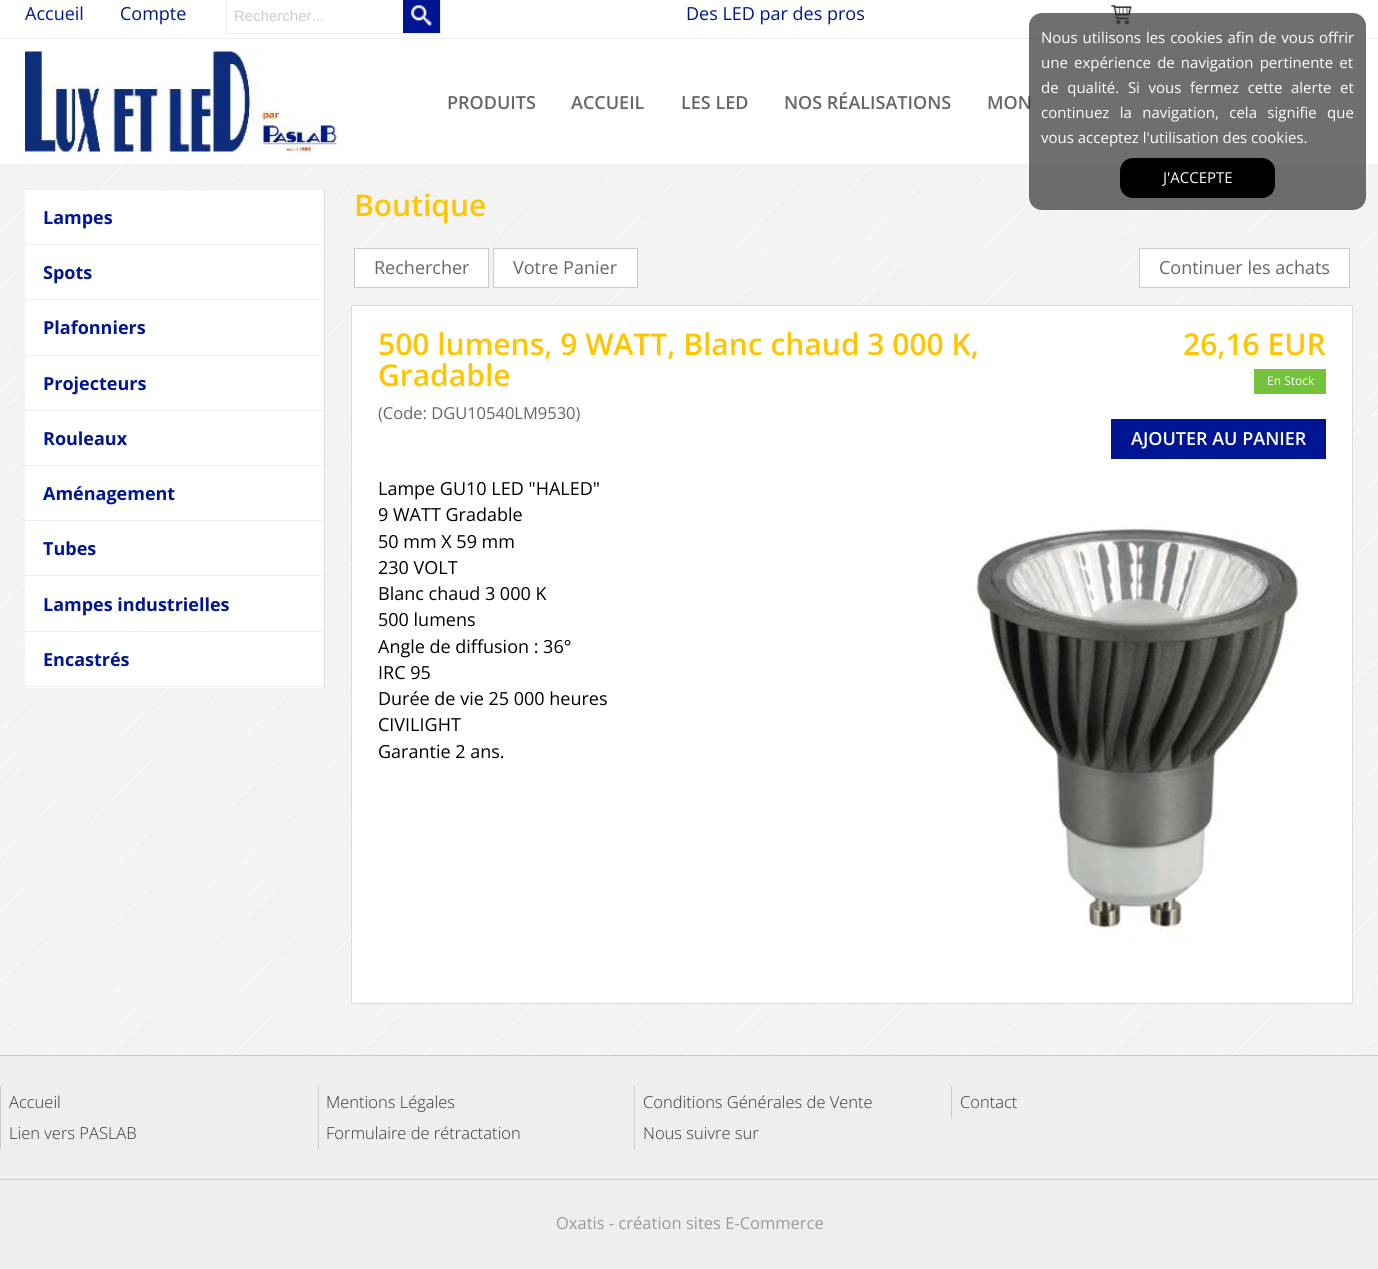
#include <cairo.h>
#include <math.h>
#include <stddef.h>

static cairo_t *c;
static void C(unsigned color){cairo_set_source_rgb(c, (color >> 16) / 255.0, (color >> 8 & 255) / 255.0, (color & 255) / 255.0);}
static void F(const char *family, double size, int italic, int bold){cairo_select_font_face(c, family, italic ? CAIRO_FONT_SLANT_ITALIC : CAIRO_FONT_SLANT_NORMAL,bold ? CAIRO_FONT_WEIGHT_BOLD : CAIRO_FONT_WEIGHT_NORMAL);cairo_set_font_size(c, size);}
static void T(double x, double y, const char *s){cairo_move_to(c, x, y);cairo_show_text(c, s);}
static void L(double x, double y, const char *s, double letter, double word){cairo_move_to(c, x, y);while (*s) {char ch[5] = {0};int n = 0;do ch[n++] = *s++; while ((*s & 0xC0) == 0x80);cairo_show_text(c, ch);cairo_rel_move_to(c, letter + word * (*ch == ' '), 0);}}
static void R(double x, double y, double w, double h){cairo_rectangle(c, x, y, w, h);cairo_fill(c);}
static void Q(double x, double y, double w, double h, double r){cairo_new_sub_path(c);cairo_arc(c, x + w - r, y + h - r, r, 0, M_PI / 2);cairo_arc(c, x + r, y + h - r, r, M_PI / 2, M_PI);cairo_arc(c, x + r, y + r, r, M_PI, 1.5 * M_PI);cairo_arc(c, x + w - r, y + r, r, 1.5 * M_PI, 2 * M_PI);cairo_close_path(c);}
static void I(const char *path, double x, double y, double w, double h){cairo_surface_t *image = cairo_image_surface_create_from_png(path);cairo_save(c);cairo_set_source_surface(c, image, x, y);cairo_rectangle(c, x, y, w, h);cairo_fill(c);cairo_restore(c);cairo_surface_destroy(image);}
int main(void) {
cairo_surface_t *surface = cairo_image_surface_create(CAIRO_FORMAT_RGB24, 1378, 1269);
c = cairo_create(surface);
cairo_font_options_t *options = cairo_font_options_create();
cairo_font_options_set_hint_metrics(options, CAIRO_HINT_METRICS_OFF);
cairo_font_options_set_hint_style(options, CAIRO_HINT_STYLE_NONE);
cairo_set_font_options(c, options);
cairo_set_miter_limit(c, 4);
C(0xffffff);
cairo_paint(c);
C(0xeeeeee);
R(0,38,1378,1);
F("Open Sans",18,0,0);
C(0x001594);
T(25,20,"Accueil");
T(120,20,"Compte");
cairo_rectangle(c,226.5,-.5,214,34);
C(0xeeeeee);
cairo_set_line_width(c,1);
cairo_stroke(c);
F("Liberation Sans",15,0,0);
C(0xcccccc);
T(234,21,"Rechercher...");
C(0x001594);
R(403,0,37,33);
I("1.png",411,5,21,21);
F("Open Sans",18,0,0);
T(686,20,"Des LED par des pros");
I("2.png",1111,5,21,20);
I("3.png",25,51,313,101);
F("Open Sans SemiBold",18,0,0);
C(0x666666);
T(447,109,"PRODUITS");
T(571,109,"ACCUEIL");
T(681,109,"LES LED");
T(784,109,"NOS RÉALISATIONS");
T(987,109,"MON");
I("4.png",0,164,1378,891);
C(0xffffff);
R(25,190,299,498);
C(0xdddddd);
R(324,189,1,499);
C(0xeeeeee);
R(25,189,299,1);
R(25,244,299,1);
F("Open Sans",18,0,1);
C(0x001594);
T(43,224,"Lampes");
C(0xeeeeee);
R(25,299,299,1);
C(0x001594);
T(43,279,"Spots");
C(0xeeeeee);
R(25,355,299,1);
C(0x001594);
T(43,334,"Plafonniers");
C(0xeeeeee);
R(25,410,299,1);
C(0x001594);
T(43,390,"Projecteurs");
C(0xeeeeee);
R(25,465,299,1);
C(0x001594);
T(43,445,"Rouleaux");
C(0xeeeeee);
R(25,520,299,1);
C(0x001594);
T(43,500,"Aménagement");
C(0xeeeeee);
R(25,575,299,1);
C(0x001594);
T(43,555,"Tubes");
C(0xeeeeee);
R(25,631,299,1);
C(0x001594);
T(43,611,"Lampes industrielles");
C(0xeeeeee);
R(25,686,299,1);
C(0x001594);
T(43,666,"Encastrés");
F("Open Sans SemiBold",30,0,0);
C(0xffc500);
T(354,216,"Boutique");
C(0xffffff);
cairo_rectangle(c,354.5,248.5,134,39);
cairo_fill_preserve(c);
C(0xcccccc);
cairo_stroke(c);
F("Open Sans",18,0,0);
C(0x666666);
T(374,274,"Rechercher");
C(0xffffff);
cairo_rectangle(c,493.5,248.5,144,39);
cairo_fill_preserve(c);
C(0xcccccc);
cairo_stroke(c);
C(0x666666);
T(513,274,"Votre Panier");
C(0xffffff);
cairo_rectangle(c,1139.5,248.5,210,39);
cairo_fill_preserve(c);
C(0xcccccc);
cairo_stroke(c);
C(0x666666);
T(1159,274,"Continuer les achats");
C(0xffffff);
cairo_rectangle(c,351.5,305.5,1001,698);
cairo_fill_preserve(c);
C(0xdddddd);
cairo_stroke(c);
F("Open Sans SemiBold",30,0,0);
C(0xffc500);
T(378,355,"500 lumens, 9 WATT, Blanc chaud 3 000 K,");
T(378,386,"Gradable");
F("Open Sans",16.5,0,0);
C(0x666666);
T(378,419,"(Code: DGU10540LM9530)");
F("Open Sans SemiBold",30,0,0);
C(0xffc500);
T(1183,355,"26,16 EUR");
C(0x74c13b);
R(1254,369,72,25);
F("Open Sans",12,0,0);
C(0xffffff);
T(1267,385,"En Stock");
C(0x001594);
R(1111,419,215,40);
F("Open Sans SemiBold",18,0,0);
C(0xffffff);
T(1131,445,"AJOUTER AU PANIER");
F("Open Sans",18,0,0);
C(0x000000);
T(378,495,"Lampe GU10 LED \"HALED\"");
T(378,521,"9 WATT Gradable");
T(378,548,"50 mm X 59 mm");
I("5.png",971,524,330,417);
T(378,574,"230 VOLT");
T(378,600,"Blanc chaud 3 000 K");
T(378,626,"500 lumens");
T(378,653,"Angle de diffusion : 36°");
T(378,679,"IRC 95");
T(378,705,"Durée de vie 25 000 heures");
T(378,731,"CIVILIGHT");
T(378,758,"Garantie 2 ans.");
C(0xeeeeee);
R(0,1056,1378,213);
C(0xcccccc);
R(0,1055,1378,1);
R(0,1179,1378,1);
R(0,1086,1,63);
F("Open Sans Light",16.5,0,0);
C(0x333333);
T(9,1108,"Accueil");
C(0xcccccc);
R(318,1086,1,63);
C(0x333333);
T(326,1108,"Mentions Légales");
C(0xcccccc);
R(634,1086,1,63);
C(0x333333);
T(643,1108,"Conditions Générales de Vente");
C(0xcccccc);
R(951,1086,1,32);
C(0x333333);
T(960,1108,"Contact");
T(9,1139,"Lien vers PASLAB");
T(326,1139,"Formulaire de rétractation");
T(643,1139,"Nous suivre sur");
F("Open Sans",16.5,0,0);
C(0x999999);
T(556,1229,"Oxatis - création sites E-Commerce");
cairo_set_source_rgba(c,0.2,0.2,0.2,0.7);
Q(1029,13,337,197,13);
cairo_fill(c);
F("Open Sans",15,0,0);
C(0xffffff);
L(1041,43,"Nous utilisons les cookies afin de vous offrir",0,1);
L(1041,68,"une expérience de navigation pertinente et",0,2.25);
L(1041,93,"de qualité. Si vous fermez cette alerte et",0,4.75);
L(1041,118,"continuez la navigation, cela signifie que",0,6.5);
T(1041,143,"vous acceptez l'utilisation des cookies.");
C(0x000000);
Q(1120,158,155,40,13);
cairo_fill(c);
C(0xffffff);
T(1163,183,"J'ACCEPTE");
cairo_surface_write_to_png(surface, "o.png");
cairo_font_options_destroy(options);
cairo_destroy(c);
cairo_surface_destroy(surface);
return 0;
}
